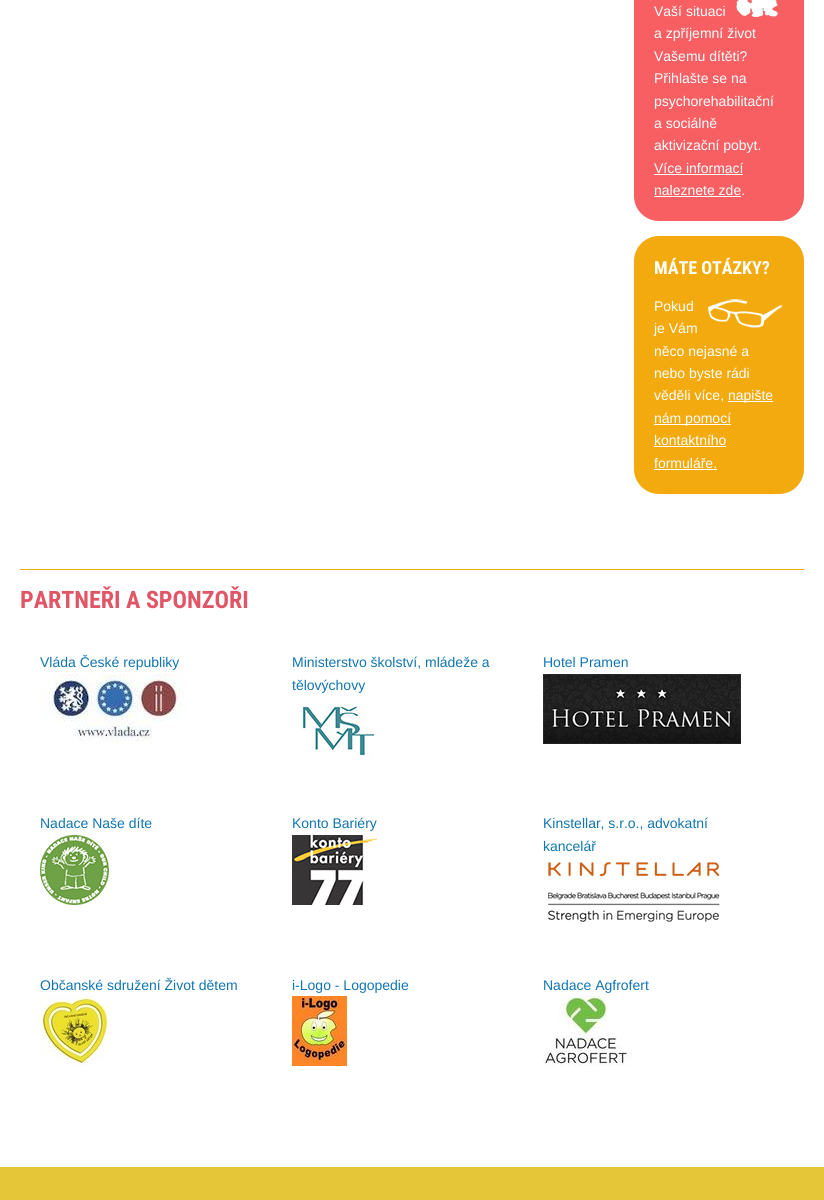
#include <cairo.h>
#include <math.h>
#include <stddef.h>

static cairo_t *c;
static void C(unsigned color){cairo_set_source_rgb(c, (color >> 16) / 255.0, (color >> 8 & 255) / 255.0, (color & 255) / 255.0);}
static void F(const char *family, double size, int italic, int bold){cairo_select_font_face(c, family, italic ? CAIRO_FONT_SLANT_ITALIC : CAIRO_FONT_SLANT_NORMAL,bold ? CAIRO_FONT_WEIGHT_BOLD : CAIRO_FONT_WEIGHT_NORMAL);cairo_set_font_size(c, size);}
static void T(double x, double y, const char *s){cairo_move_to(c, x, y);cairo_show_text(c, s);}
static void R(double x, double y, double w, double h){cairo_rectangle(c, x, y, w, h);cairo_fill(c);}
static void Q(double x, double y, double w, double h, double r){cairo_new_sub_path(c);cairo_arc(c, x + w - r, y + h - r, r, 0, M_PI / 2);cairo_arc(c, x + r, y + h - r, r, M_PI / 2, M_PI);cairo_arc(c, x + r, y + r, r, M_PI, 1.5 * M_PI);cairo_arc(c, x + w - r, y + r, r, 1.5 * M_PI, 2 * M_PI);cairo_close_path(c);}
static void I(const char *path, double x, double y, double w, double h){cairo_surface_t *image = cairo_image_surface_create_from_png(path);cairo_save(c);cairo_set_source_surface(c, image, x, y);cairo_rectangle(c, x, y, w, h);cairo_fill(c);cairo_restore(c);cairo_surface_destroy(image);}
int main(void) {
cairo_surface_t *surface = cairo_image_surface_create(CAIRO_FORMAT_RGB24, 824, 1200);
c = cairo_create(surface);
cairo_font_options_t *options = cairo_font_options_create();
cairo_font_options_set_hint_metrics(options, CAIRO_HINT_METRICS_OFF);
cairo_font_options_set_hint_style(options, CAIRO_HINT_STYLE_NONE);
cairo_set_font_options(c, options);
cairo_set_miter_limit(c, 4);
C(0xffffff);
cairo_paint(c);
C(0xf75f63);
Q(634,-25,170,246,25);
cairo_fill(c);
F("Liberation Sans",14,0,0);
C(0xffffff);
T(654,16,"Vaší situaci");
I("1.png",736,0,48,17);
T(654,38,"a zpříjemní život");
T(654,61,"Vašemu dítěti?");
T(654,83,"Přihlašte se na");
T(654,106,"psychorehabilitační");
T(654,128,"a sociálně");
T(654,150,"aktivizační pobyt.");
T(654,173,"Více informací");
R(654,174,89,1);
T(654,195,"naleznete zde.");
R(654,196,87,1);
C(0xf3aa0f);
Q(634,236,170,258,25);
cairo_fill(c);
F("Roboto Condensed",18,0,1);
C(0xffffff);
T(654,274,"MÁTE OTÁZKY?");
F("Liberation Sans",14,0,0);
T(654,311,"Pokud");
I("2.png",708,299,74,29);
T(654,333,"je Vám");
T(654,356,"něco nejasné a");
T(654,378,"nebo byste rádi");
T(654,400,"věděli více,");
R(728,401,45,1);
T(728,400,"napište");
R(654,424,77,1);
T(654,423,"nám pomocí");
T(654,445,"kontaktního");
R(654,446,72,1);
T(654,468,"formuláře.");
R(654,469,63,1);
C(0xf3aa0f);
R(20,569,784,1);
F("Roboto Condensed",24,0,1);
C(0xe05666);
T(20,608,"PARTNEŘI A SPONZOŘI");
F("Liberation Sans",14,0,0);
C(0x1175b0);
T(40,667,"Vláda České republiky");
I("3.png",40,674,144,70);
T(292,667,"Ministerstvo školství, mládeže a");
T(292,690,"tělovýchovy");
I("4.png",300,704,79,56);
T(543,667,"Hotel Pramen");
I("5.png",543,674,198,70);
T(40,828,"Nadace Naše díte");
I("6.png",40,835,69,70);
T(292,828,"Konto Bariéry");
I("7.png",292,835,85,70);
T(543,828,"Kinstellar, s.r.o., advokatní");
T(543,851,"kancelář");
I("8.png",548,862,172,60);
T(40,990,"Občanské sdružení Život dětem");
I("9.png",40,996,70,70);
T(292,990,"i-Logo - Logopedie");
I("10.png",292,996,55,70);
T(543,990,"Nadace Agfrofert");
I("11.png",543,996,88,70);
C(0xe6c639);
R(0,1167,824,33);
cairo_surface_write_to_png(surface, "o.png");
cairo_font_options_destroy(options);
cairo_destroy(c);
cairo_surface_destroy(surface);
return 0;
}
